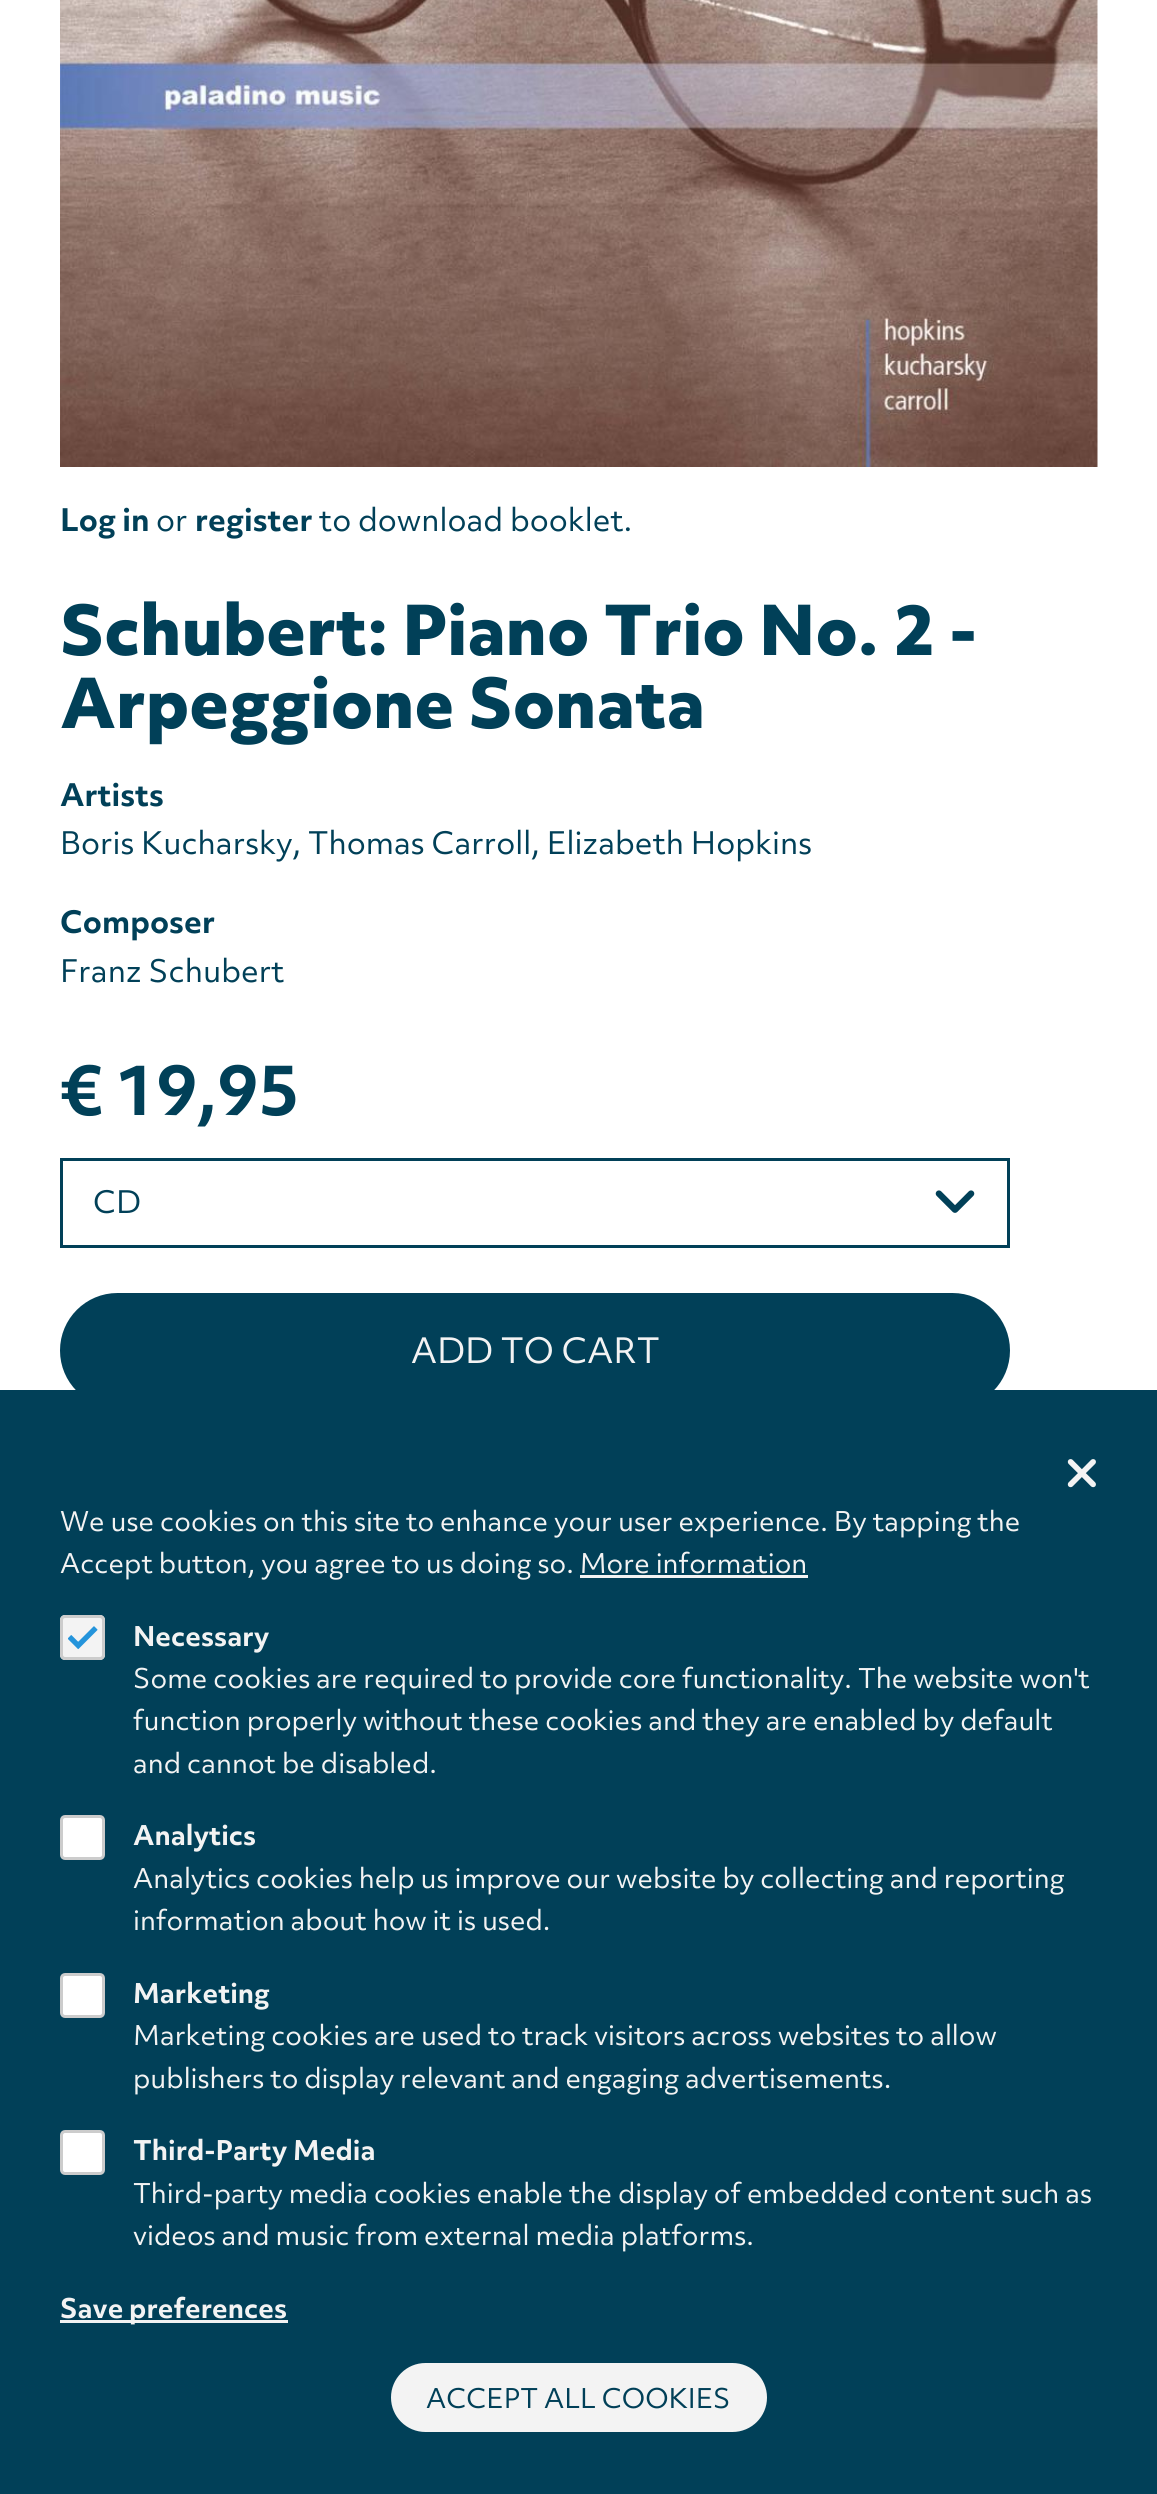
#include <cairo.h>
#include <math.h>
#include <stddef.h>

static cairo_t *c;
static void C(unsigned color){cairo_set_source_rgb(c, (color >> 16) / 255.0, (color >> 8 & 255) / 255.0, (color & 255) / 255.0);}
static void F(const char *family, double size, int italic, int bold){cairo_select_font_face(c, family, italic ? CAIRO_FONT_SLANT_ITALIC : CAIRO_FONT_SLANT_NORMAL,bold ? CAIRO_FONT_WEIGHT_BOLD : CAIRO_FONT_WEIGHT_NORMAL);cairo_set_font_size(c, size);}
static void T(double x, double y, const char *s){cairo_move_to(c, x, y);cairo_show_text(c, s);}
static void R(double x, double y, double w, double h){cairo_rectangle(c, x, y, w, h);cairo_fill(c);}
static void Q(double x, double y, double w, double h, double r){cairo_new_sub_path(c);cairo_arc(c, x + w - r, y + h - r, r, 0, M_PI / 2);cairo_arc(c, x + r, y + h - r, r, M_PI / 2, M_PI);cairo_arc(c, x + r, y + r, r, M_PI, 1.5 * M_PI);cairo_arc(c, x + w - r, y + r, r, 1.5 * M_PI, 2 * M_PI);cairo_close_path(c);}
static void I(const char *path, double x, double y, double w, double h){cairo_surface_t *image = cairo_image_surface_create_from_png(path);cairo_save(c);cairo_set_source_surface(c, image, x, y);cairo_rectangle(c, x, y, w, h);cairo_fill(c);cairo_restore(c);cairo_surface_destroy(image);}
int main(void) {
cairo_surface_t *surface = cairo_image_surface_create(CAIRO_FORMAT_RGB24, 1157, 2494);
c = cairo_create(surface);
cairo_font_options_t *options = cairo_font_options_create();
cairo_font_options_set_hint_metrics(options, CAIRO_HINT_METRICS_OFF);
cairo_font_options_set_hint_style(options, CAIRO_HINT_STYLE_NONE);
cairo_set_font_options(c, options);
cairo_set_miter_limit(c, 4);
C(0xffffff);
cairo_paint(c);
I("1.png",60,0,1038,467);
F("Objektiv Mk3",30,0,1);
C(0x014058);
T(60,531,"Log in");
F("Objektiv Mk3",30,0,0);
T(156,531,"or");
F("Objektiv Mk3",30,0,1);
T(195,531,"register");
F("Objektiv Mk3",30,0,0);
T(319,531,"to download booklet.");
F("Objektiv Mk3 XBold",66.2,0,1);
T(60,655,"Schubert: Piano Trio No. 2 -");
T(60,728,"Arpeggione Sonata");
F("Objektiv Mk3",30,0,1);
T(60,806,"Artists");
F("Objektiv Mk3",30,0,0);
T(60,854,"Boris Kucharsky, Thomas Carroll, Elizabeth Hopkins");
F("Objektiv Mk3",30,0,1);
T(60,933,"Composer");
F("Objektiv Mk3",30,0,0);
T(60,982,"Franz Schubert");
F("Objektiv Mk3",66.2,0,1);
T(60,1115,"€ 19,95");
I("2.png",935,1190,40,23);
cairo_rectangle(c,61.5,1159.5,947,87);
cairo_set_line_width(c,3);
cairo_stroke(c);
F("Objektiv Mk3",30,0,0);
T(93,1213,"CD");
Q(61.5,1294.5,947,112,56);
cairo_fill_preserve(c);
cairo_stroke(c);
F("Objektiv Mk3",33.75,0,0);
C(0xf3f3f3);
T(411,1363,"ADD TO CART");
C(0x014058);
R(0,1390,1157,1104);
I("3.png",1067,1459,29,29);
F("Objektiv Mk3",26.25,0,0);
C(0xf3f3f3);
T(60,1531,"We use cookies on this site to enhance your user experience. By tapping the");
T(60,1573,"Accept button, you agree to us doing so. More information");
R(580,1575,228,3);
Q(60,1615,45,45,5);
cairo_fill(c);
I("4.png",68,1626,30,24);
Q(61.5,1616.5,42,42,3.5);
C(0xcccccc);
cairo_stroke(c);
F("Objektiv Mk3",26.25,0,1);
C(0xf3f3f3);
T(133,1646,"Necessary");
F("Objektiv Mk3",26.25,0,0);
T(133,1688,"Some cookies are required to provide core functionality. The website won't");
T(133,1730,"function properly without these cookies and they are enabled by default");
T(133,1773,"and cannot be disabled.");
C(0xffffff);
Q(61.5,1816.5,42,42,3.5);
cairo_fill_preserve(c);
C(0xcccccc);
cairo_stroke(c);
F("Objektiv Mk3",26.25,0,1);
C(0xf3f3f3);
T(133,1845,"Analytics");
F("Objektiv Mk3",26.25,0,0);
T(133,1888,"Analytics cookies help us improve our website by collecting and reporting");
T(133,1930,"information about how it is used.");
C(0xffffff);
Q(61.5,1974.5,42,42,3.5);
cairo_fill_preserve(c);
C(0xcccccc);
cairo_stroke(c);
F("Objektiv Mk3",26.25,0,1);
C(0xf3f3f3);
T(133,2003,"Marketing");
F("Objektiv Mk3",26.25,0,0);
T(133,2045,"Marketing cookies are used to track visitors across websites to allow");
T(133,2088,"publishers to display relevant and engaging advertisements.");
C(0xffffff);
Q(61.5,2131.5,42,42,3.5);
cairo_fill_preserve(c);
C(0xcccccc);
cairo_stroke(c);
F("Objektiv Mk3",26.25,0,1);
C(0xf3f3f3);
T(133,2160,"Third-Party Media");
F("Objektiv Mk3",26.25,0,0);
T(133,2203,"Third-party media cookies enable the display of embedded content such as");
T(133,2245,"videos and music from external media platforms.");
R(60,2320,228,3);
F("Objektiv Mk3",26.25,0,1);
T(60,2318,"Save preferences");
Q(389.5,2361.5,379,72,36);
cairo_fill_preserve(c);
C(0x014058);
cairo_stroke(c);
F("Objektiv Mk3",26.25,0,0);
T(426,2408,"ACCEPT ALL COOKIES");
cairo_surface_write_to_png(surface, "o.png");
cairo_font_options_destroy(options);
cairo_destroy(c);
cairo_surface_destroy(surface);
return 0;
}
